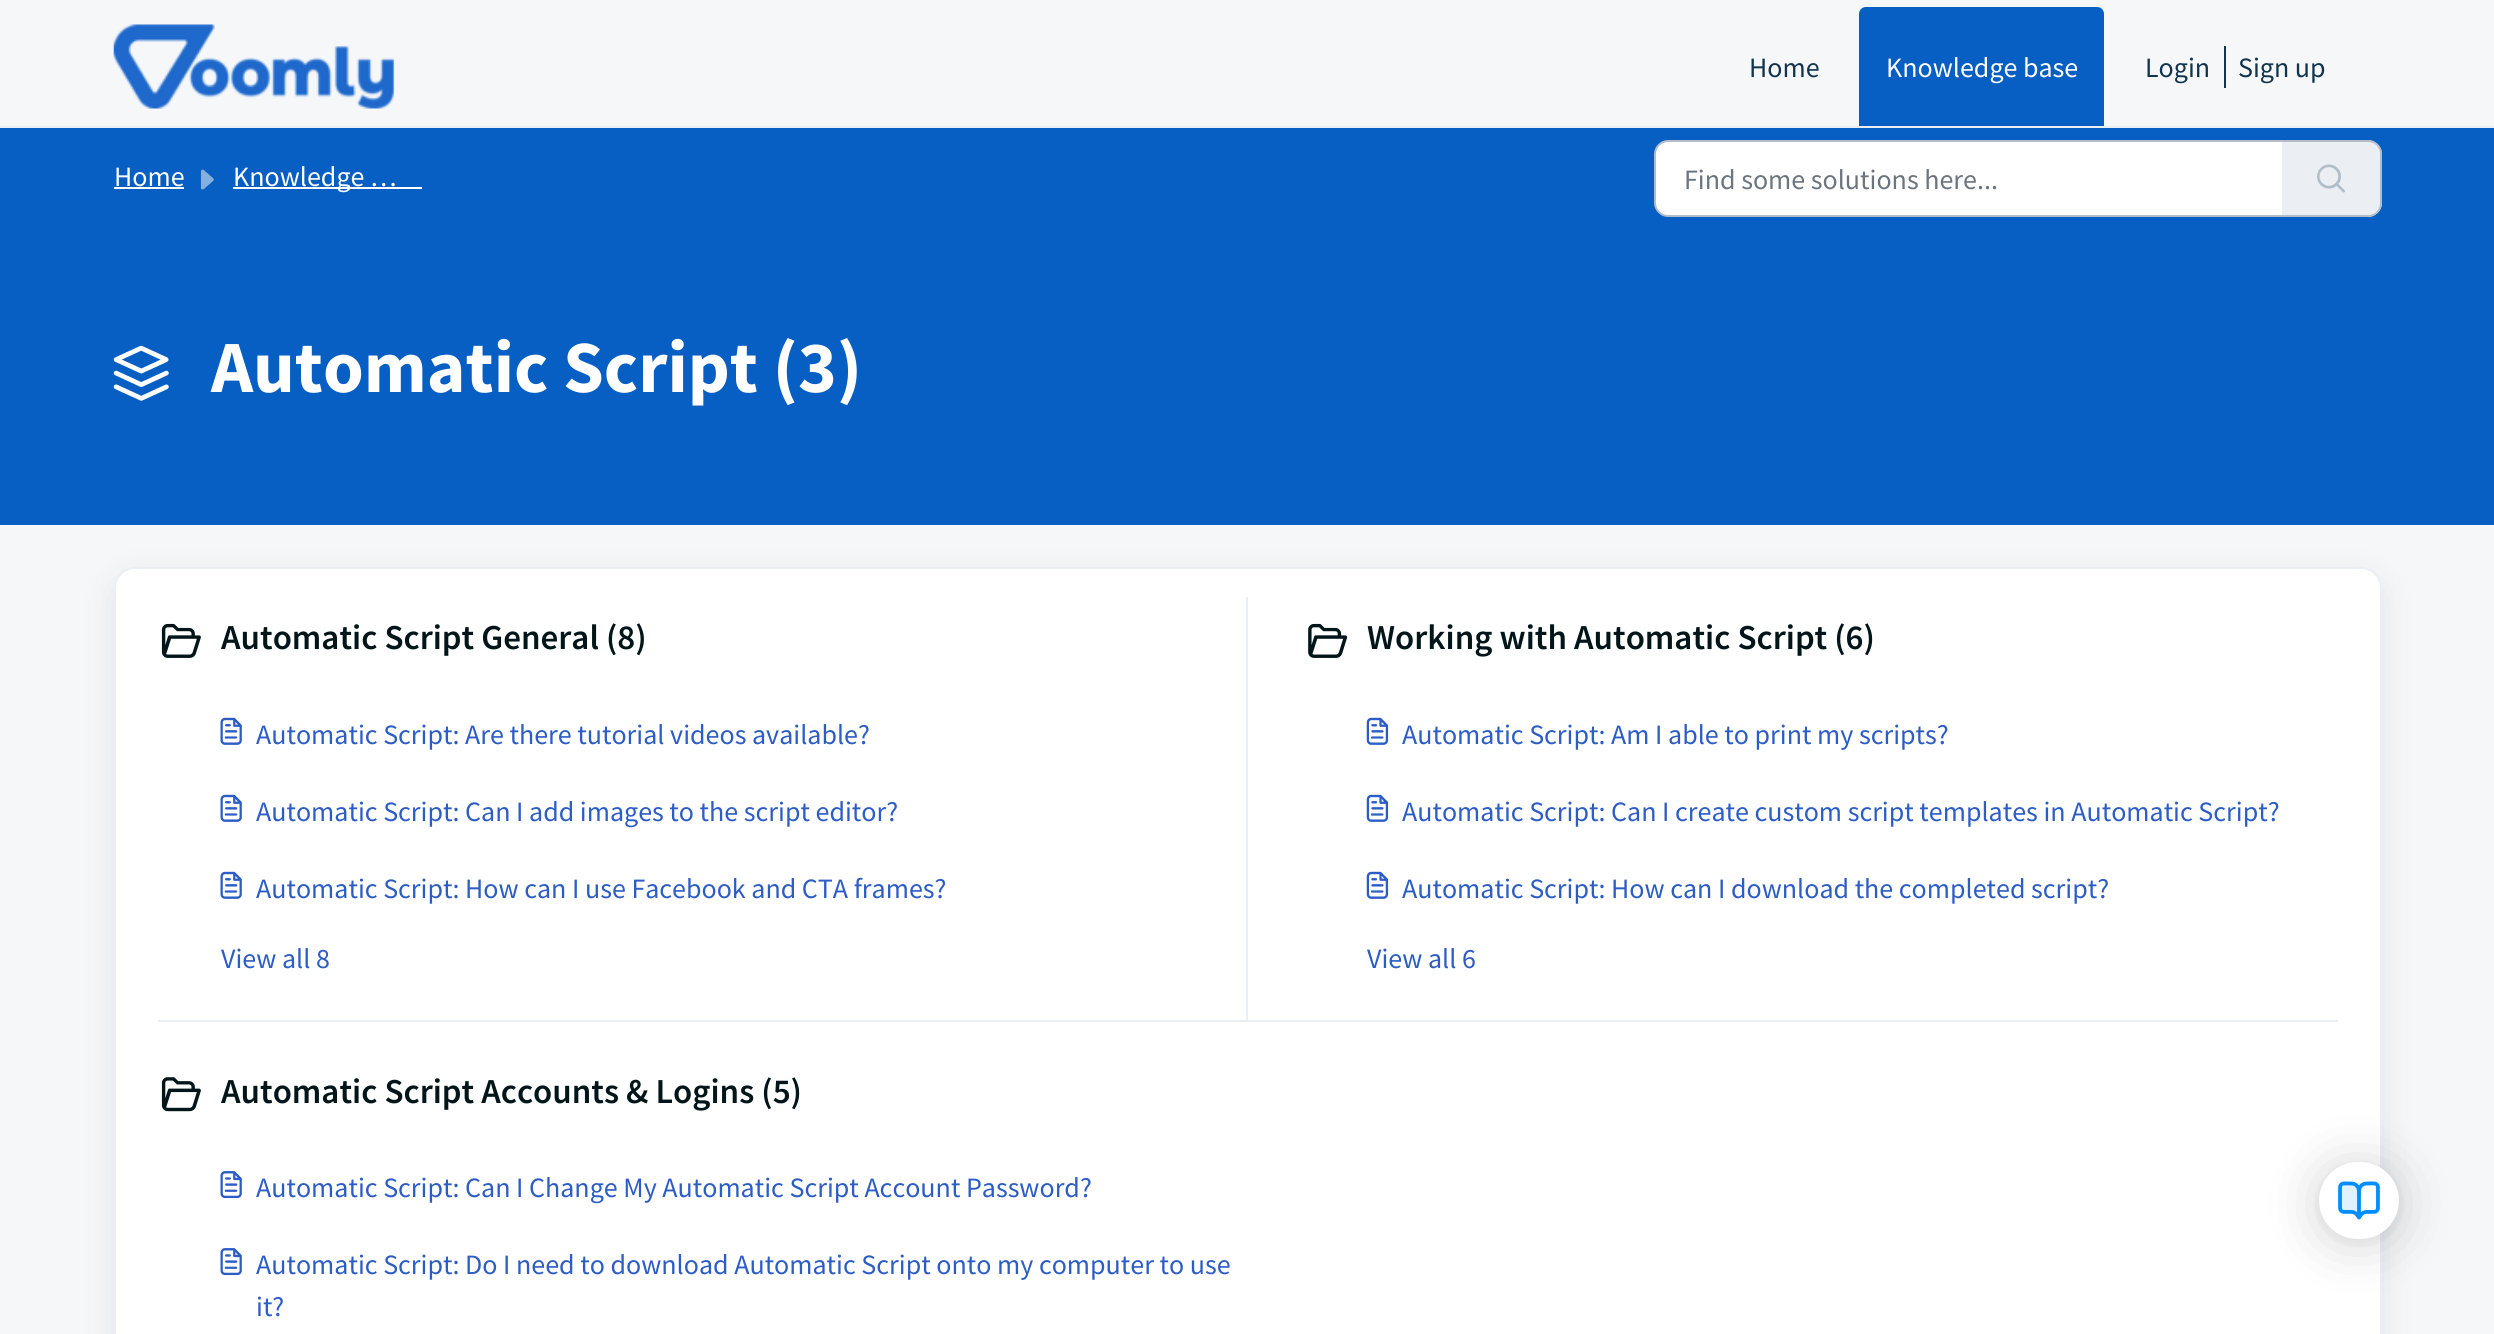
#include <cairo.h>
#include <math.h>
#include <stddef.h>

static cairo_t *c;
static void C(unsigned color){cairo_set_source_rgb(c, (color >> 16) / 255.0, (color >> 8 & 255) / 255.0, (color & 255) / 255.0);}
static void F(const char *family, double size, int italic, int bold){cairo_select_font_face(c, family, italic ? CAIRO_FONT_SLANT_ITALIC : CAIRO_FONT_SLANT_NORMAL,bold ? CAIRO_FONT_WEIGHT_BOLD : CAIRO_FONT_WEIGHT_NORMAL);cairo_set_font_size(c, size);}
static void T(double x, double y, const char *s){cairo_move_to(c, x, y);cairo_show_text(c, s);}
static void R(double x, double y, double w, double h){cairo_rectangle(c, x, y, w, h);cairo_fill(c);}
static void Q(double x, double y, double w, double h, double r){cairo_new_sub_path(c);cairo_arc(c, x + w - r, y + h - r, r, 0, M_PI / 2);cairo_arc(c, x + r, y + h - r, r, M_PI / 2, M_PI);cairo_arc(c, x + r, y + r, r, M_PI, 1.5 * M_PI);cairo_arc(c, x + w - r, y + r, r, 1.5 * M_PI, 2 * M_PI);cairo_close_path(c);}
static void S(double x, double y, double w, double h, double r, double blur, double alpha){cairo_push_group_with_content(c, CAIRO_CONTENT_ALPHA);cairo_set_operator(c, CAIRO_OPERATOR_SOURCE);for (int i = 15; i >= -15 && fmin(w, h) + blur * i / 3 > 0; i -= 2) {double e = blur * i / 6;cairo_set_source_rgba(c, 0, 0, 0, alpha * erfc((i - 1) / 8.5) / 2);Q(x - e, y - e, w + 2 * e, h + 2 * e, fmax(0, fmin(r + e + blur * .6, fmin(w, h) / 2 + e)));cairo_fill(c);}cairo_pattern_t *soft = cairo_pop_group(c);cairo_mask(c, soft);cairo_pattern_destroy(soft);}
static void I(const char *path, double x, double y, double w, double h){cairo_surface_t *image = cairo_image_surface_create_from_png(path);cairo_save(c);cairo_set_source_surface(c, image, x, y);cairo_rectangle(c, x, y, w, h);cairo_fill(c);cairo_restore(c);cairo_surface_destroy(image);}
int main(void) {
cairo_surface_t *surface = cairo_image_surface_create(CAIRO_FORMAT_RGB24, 2494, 1334);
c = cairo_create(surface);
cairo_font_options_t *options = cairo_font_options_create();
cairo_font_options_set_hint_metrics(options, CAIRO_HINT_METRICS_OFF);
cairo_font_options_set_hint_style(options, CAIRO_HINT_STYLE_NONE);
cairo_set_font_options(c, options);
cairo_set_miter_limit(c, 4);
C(0xf5f7f9);
cairo_paint(c);
C(0xebeff3);
R(0,126,2494,2);
I("1.png",113,24,282,85);
F("Source Sans Pro",28,0,0);
C(0x12344d);
T(1749,77,"Home");
C(0x075ec3);
cairo_new_path(c);
cairo_move_to(c,1866,7);
cairo_line_to(c,2097,7);
cairo_curve_to(c,2101,7,2104,10,2104,14);
cairo_line_to(c,2104,126);
cairo_line_to(c,1859,126);
cairo_line_to(c,1859,14);
cairo_curve_to(c,1859,10,1862,7,1866,7);
cairo_close_path(c);
cairo_fill(c);
C(0xffffff);
T(1886,77,"Knowledge base");
C(0x12344d);
T(2145,77,"Login");
R(2224,46,2,42);
T(2238,77,"Sign up");
C(0x075ec3);
R(0,128,2494,397);
C(0xffffff);
T(114,186,"Home");
R(114,187,70,2);
I("2.png",200,169,14,21);
R(233,187,189,2);
T(233,186,"Knowledge …");
cairo_new_path(c);
cairo_move_to(c,1668,141);
cairo_line_to(c,2283,141);
cairo_line_to(c,2283,216);
cairo_line_to(c,1668,216);
cairo_curve_to(c,1661,216,1655,210,1655,203);
cairo_line_to(c,1655,154);
cairo_curve_to(c,1655,147,1661,141,1668,141);
cairo_close_path(c);
cairo_fill_preserve(c);
C(0xb1bdc8);
cairo_stroke(c);
C(0x6c757d);
T(1684,189,"Find some solutions here...");
C(0xebeff3);
cairo_new_path(c);
cairo_move_to(c,2282,140);
cairo_line_to(c,2368,140);
cairo_curve_to(c,2375.5,140,2382,146.5,2382,154);
cairo_line_to(c,2382,203);
cairo_curve_to(c,2382,210.5,2375.5,217,2368,217);
cairo_line_to(c,2282,217);
cairo_close_path(c);
cairo_fill(c);
C(0xb1bdc8);
cairo_set_fill_rule(c,CAIRO_FILL_RULE_EVEN_ODD);
cairo_new_path(c);
cairo_move_to(c,2282,140);
cairo_line_to(c,2368,140);
cairo_curve_to(c,2375,140,2382,146,2382,154);
cairo_line_to(c,2382,203);
cairo_curve_to(c,2382,211,2375,217,2368,217);
cairo_line_to(c,2282,217);
cairo_close_path(c);
cairo_move_to(c,2282,142);
cairo_line_to(c,2368,142);
cairo_curve_to(c,2375,142,2380,147,2380,154);
cairo_line_to(c,2380,203);
cairo_curve_to(c,2380,210,2375,215,2368,215);
cairo_line_to(c,2282,215);
cairo_close_path(c);
cairo_fill(c);
I("3.png",2317,164,28,29);
I("4.png",113,345,56,56);
F("Source Sans Pro",73.5,0,1);
C(0xffffff);
T(211,392,"Automatic Script (3)");
C(0x27313a);
S(114,578,2268,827,21,16.5,.1);
C(0xffffff);
Q(115,568,2266,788,20);
cairo_fill_preserve(c);
C(0xebeff3);
cairo_stroke(c);
R(1246,597,2,425);
R(158,1020,2180,2);
I("5.png",161,623,40,35);
F("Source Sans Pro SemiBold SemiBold",35,0,0);
C(0x021519);
T(221,649,"Automatic Script General (8)");
I("6.png",220,717,22,28);
F("Source Sans Pro",28,0,0);
C(0x2c5cc5);
T(256,744,"Automatic Script: Are there tutorial videos available?");
I("6.png",220,794,22,28);
T(256,821,"Automatic Script: Can I add images to the script editor?");
I("6.png",220,871,22,28);
T(256,898,"Automatic Script: How can I use Facebook and CTA frames?");
T(221,968,"View all 8");
I("7.png",1308,623,40,35);
F("Source Sans Pro SemiBold SemiBold",35,0,0);
C(0x021519);
T(1367,649,"Working with Automatic Script (6)");
I("8.png",1366,717,23,28);
F("Source Sans Pro",28,0,0);
C(0x2c5cc5);
T(1402,744,"Automatic Script: Am I able to print my scripts?");
I("8.png",1366,794,23,28);
T(1402,821,"Automatic Script: Can I create custom script templates in Automatic Script?");
I("8.png",1366,871,23,28);
T(1402,898,"Automatic Script: How can I download the completed script?");
T(1367,968,"View all 6");
I("9.png",161,1077,40,35);
F("Source Sans Pro SemiBold SemiBold",35,0,0);
C(0x021519);
T(221,1103,"Automatic Script Accounts & Logins (5)");
I("10.png",220,1171,22,28);
F("Source Sans Pro",28,0,0);
C(0x2c5cc5);
T(256,1197,"Automatic Script: Can I Change My Automatic Script Account Password?");
I("10.png",220,1248,22,28);
T(256,1274,"Automatic Script: Do I need to download Automatic Script onto my computer to use");
T(256,1316,"it?");
C(0x000000);
S(2319,1166,80,77,38.5,28,.16);
S(2319,1164,80,77,38.5,5,.06);
C(0xffffff);
Q(2319,1162,80,77,38.5);
cairo_fill(c);
I("11.png",2338,1181,42,39);
cairo_surface_write_to_png(surface, "o.png");
cairo_font_options_destroy(options);
cairo_destroy(c);
cairo_surface_destroy(surface);
return 0;
}
